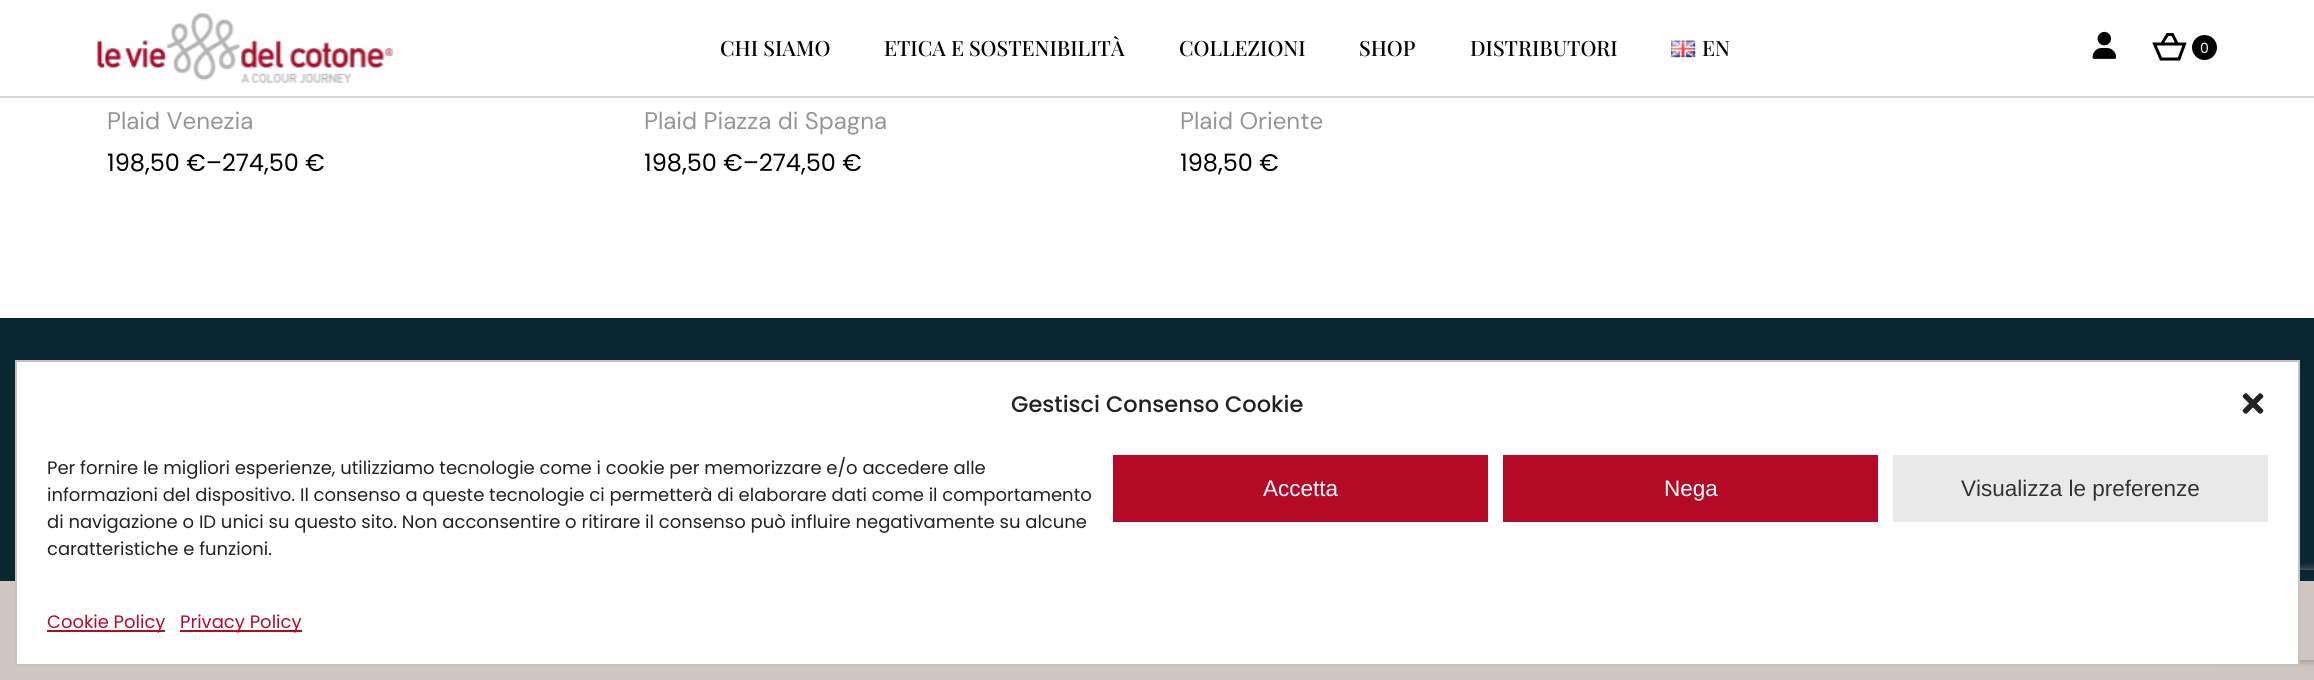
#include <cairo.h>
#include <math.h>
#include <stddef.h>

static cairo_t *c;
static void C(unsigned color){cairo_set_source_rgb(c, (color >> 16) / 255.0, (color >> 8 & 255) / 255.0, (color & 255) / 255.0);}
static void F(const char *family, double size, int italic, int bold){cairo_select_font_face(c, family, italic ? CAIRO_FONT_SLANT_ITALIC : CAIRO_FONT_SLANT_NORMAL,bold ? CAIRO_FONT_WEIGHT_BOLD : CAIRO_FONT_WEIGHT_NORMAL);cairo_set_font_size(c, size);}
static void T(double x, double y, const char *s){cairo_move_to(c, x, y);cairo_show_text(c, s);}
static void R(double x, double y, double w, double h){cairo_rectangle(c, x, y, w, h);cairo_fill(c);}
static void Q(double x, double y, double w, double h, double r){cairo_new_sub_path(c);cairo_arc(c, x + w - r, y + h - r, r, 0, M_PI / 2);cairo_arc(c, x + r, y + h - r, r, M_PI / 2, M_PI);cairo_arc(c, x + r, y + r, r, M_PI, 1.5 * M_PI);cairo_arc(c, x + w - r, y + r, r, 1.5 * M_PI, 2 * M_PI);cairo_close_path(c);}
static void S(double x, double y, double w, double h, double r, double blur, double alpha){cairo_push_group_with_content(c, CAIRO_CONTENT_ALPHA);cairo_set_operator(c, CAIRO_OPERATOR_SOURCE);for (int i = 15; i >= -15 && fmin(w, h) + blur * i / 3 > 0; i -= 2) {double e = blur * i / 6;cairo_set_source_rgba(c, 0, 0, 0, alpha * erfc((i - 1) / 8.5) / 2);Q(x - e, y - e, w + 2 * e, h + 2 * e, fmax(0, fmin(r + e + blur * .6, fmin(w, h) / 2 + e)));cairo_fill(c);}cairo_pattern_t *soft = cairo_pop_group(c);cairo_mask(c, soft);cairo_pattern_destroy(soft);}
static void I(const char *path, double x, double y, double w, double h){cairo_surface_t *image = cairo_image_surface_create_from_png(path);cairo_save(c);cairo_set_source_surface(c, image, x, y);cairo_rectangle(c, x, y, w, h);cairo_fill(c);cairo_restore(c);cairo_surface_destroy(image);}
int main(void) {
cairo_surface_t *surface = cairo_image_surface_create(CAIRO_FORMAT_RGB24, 2314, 680);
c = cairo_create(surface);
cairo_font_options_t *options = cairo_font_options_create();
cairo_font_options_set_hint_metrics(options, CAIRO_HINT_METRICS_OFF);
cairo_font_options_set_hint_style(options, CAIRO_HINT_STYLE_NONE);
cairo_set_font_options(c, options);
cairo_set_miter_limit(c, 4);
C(0xffffff);
cairo_paint(c);
C(0xd8d8d8);
R(0,96,2314,2);
I("1.png",97,13,296,71);
F("Playfair Display Medium",21,0,0);
C(0x000000);
T(720,56,"CHI SIAMO");
T(884,56,"ETICA E SOSTENIBILITÀ");
T(1179,56,"COLLEZIONI");
T(1359,56,"SHOP");
T(1470,56,"DISTRIBUTORI");
I("2.png",1671,40,25,18);
T(1702,56,"EN");
I("3.png",2092,31,25,28);
cairo_new_path(c);
cairo_move_to(c,2154.5,44);
cairo_line_to(c,2184.5,44);
cairo_line_to(c,2179,59);
cairo_line_to(c,2161,59);
cairo_close_path(c);
cairo_move_to(c,2162,43.5);
cairo_line_to(c,2167.5,34.5);
cairo_line_to(c,2172.5,34.5);
cairo_line_to(c,2177,43.5);
cairo_set_line_width(c,3);
cairo_stroke(c);
cairo_arc(c,2204.5,47.5,12.5,0,2 * M_PI);
cairo_fill(c);
F("Poppins",14,0,0);
C(0xffffff);
T(2200,53,"0");
F("DM Sans",24,0,0);
C(0x959595);
T(107,129,"Plaid Venezia");
F("Poppins",24,0,0);
C(0x000000);
T(107,171,"198,50 €–274,50 €");
F("DM Sans",24,0,0);
C(0x959595);
T(644,129,"Plaid Piazza di Spagna");
F("Poppins",24,0,0);
C(0x000000);
T(644,171,"198,50 €–274,50 €");
F("DM Sans",24,0,0);
C(0x959595);
T(1180,129,"Plaid Oriente");
F("Poppins",24,0,0);
C(0x000000);
T(1180,171,"198,50 €");
C(0x0b2633);
R(0,318,2314,263);
C(0xcfc6bf);
R(0,581,2314,99);
cairo_save(c);
cairo_set_fill_rule(c,CAIRO_FILL_RULE_EVEN_ODD);
cairo_new_path(c);
cairo_move_to(c,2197,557);
cairo_line_to(c,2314,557);
cairo_line_to(c,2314,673);
cairo_line_to(c,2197,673);
cairo_close_path(c);
cairo_move_to(c,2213,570);
cairo_line_to(c,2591,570);
cairo_curve_to(c,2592.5,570,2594,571.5,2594,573);
cairo_line_to(c,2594,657);
cairo_curve_to(c,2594,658.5,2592.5,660,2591,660);
cairo_line_to(c,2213,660);
cairo_curve_to(c,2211.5,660,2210,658.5,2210,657);
cairo_line_to(c,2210,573);
cairo_curve_to(c,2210,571.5,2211.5,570,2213,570);
cairo_close_path(c);
cairo_clip(c);
C(0x808080);
S(2210,570,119,90,3,4,1);
cairo_restore(c);
C(0xffffff);
cairo_rectangle(c,16,361,2283,304);
cairo_fill_preserve(c);
C(0xc2c2c2);
cairo_set_line_width(c,2);
cairo_stroke(c);
F("Poppins Medium",22.5,0,0);
C(0x222222);
T(1011,412,"Gestisci Consenso Cookie");
I("4.png",2242,393,22,21);
F("Poppins",18,0,0);
T(47,474,"Per fornire le migliori esperienze, utilizziamo tecnologie come i cookie per memorizzare e/o accedere alle");
T(47,501,"informazioni del dispositivo. Il consenso a queste tecnologie ci permetterà di elaborare dati come il comportamento");
T(47,528,"di navigazione o ID unici su questo sito. Non acconsentire o ritirare il consenso può influire negativamente su alcune");
T(47,555,"caratteristiche e funzioni.");
C(0xb40a28);
R(1113,455,375,67);
F("Liberation Sans",22.5,0,0);
C(0xffffff);
T(1263,496,"Accetta");
C(0xb40a28);
R(1503,455,375,67);
C(0xffffff);
T(1664,496,"Nega");
C(0xe9e9e9);
R(1893,455,375,67);
C(0x333333);
T(1961,496,"Visualizza le preferenze");
C(0xb40a28);
R(47,630,118,2);
F("Poppins",18,0,0);
T(47,628,"Cookie Policy");
R(180,630,122,2);
T(180,628,"Privacy Policy");
cairo_surface_write_to_png(surface, "o.png");
cairo_font_options_destroy(options);
cairo_destroy(c);
cairo_surface_destroy(surface);
return 0;
}
